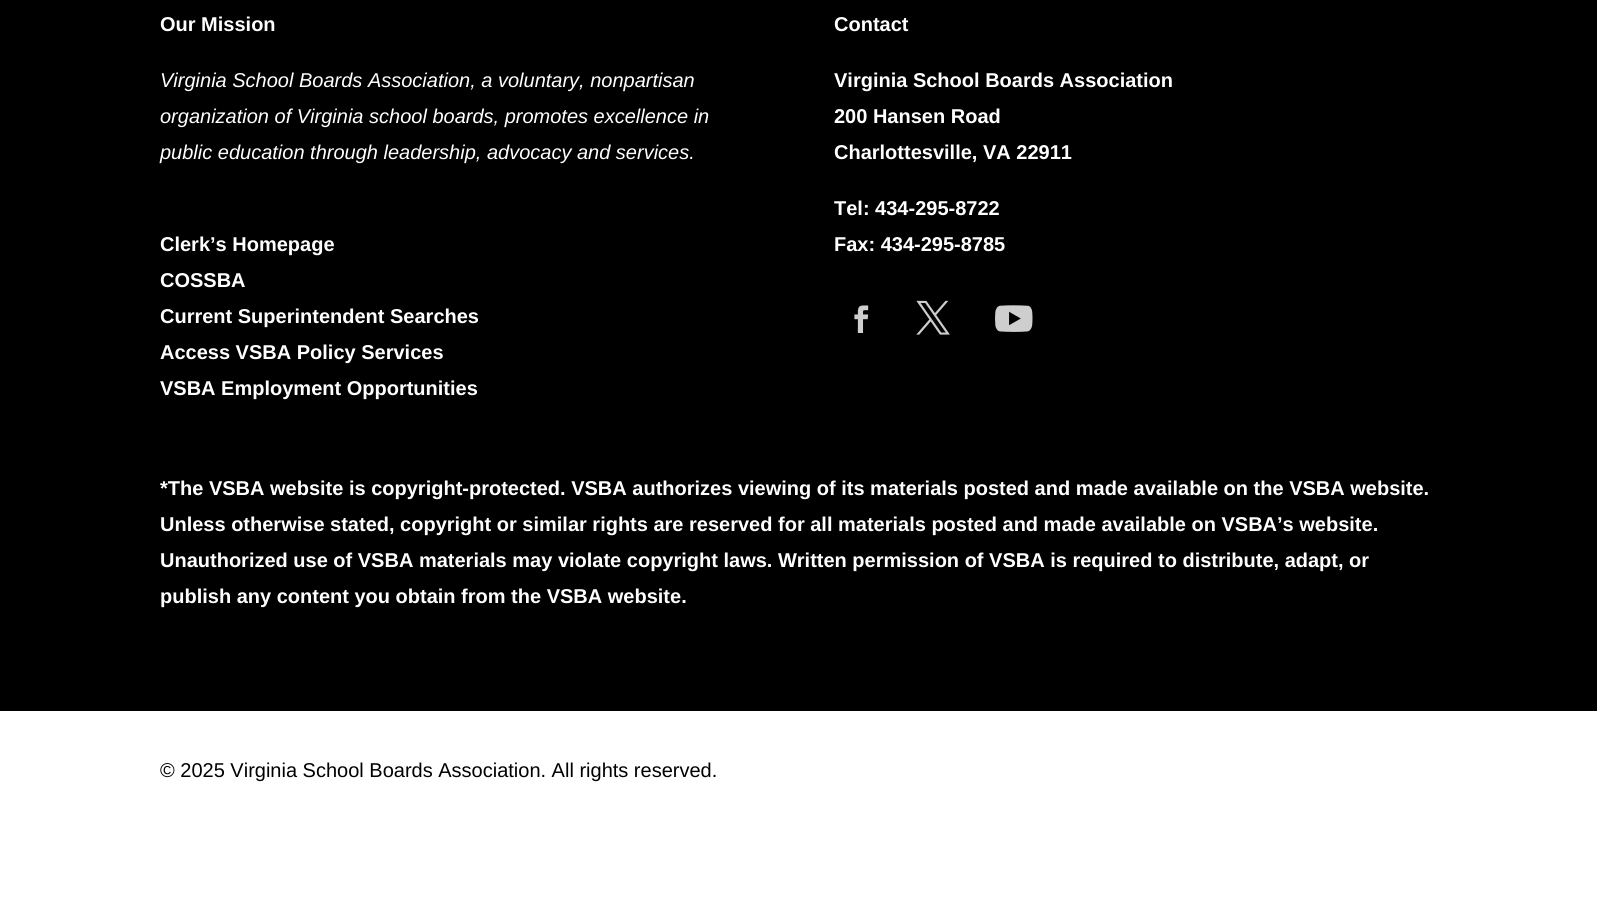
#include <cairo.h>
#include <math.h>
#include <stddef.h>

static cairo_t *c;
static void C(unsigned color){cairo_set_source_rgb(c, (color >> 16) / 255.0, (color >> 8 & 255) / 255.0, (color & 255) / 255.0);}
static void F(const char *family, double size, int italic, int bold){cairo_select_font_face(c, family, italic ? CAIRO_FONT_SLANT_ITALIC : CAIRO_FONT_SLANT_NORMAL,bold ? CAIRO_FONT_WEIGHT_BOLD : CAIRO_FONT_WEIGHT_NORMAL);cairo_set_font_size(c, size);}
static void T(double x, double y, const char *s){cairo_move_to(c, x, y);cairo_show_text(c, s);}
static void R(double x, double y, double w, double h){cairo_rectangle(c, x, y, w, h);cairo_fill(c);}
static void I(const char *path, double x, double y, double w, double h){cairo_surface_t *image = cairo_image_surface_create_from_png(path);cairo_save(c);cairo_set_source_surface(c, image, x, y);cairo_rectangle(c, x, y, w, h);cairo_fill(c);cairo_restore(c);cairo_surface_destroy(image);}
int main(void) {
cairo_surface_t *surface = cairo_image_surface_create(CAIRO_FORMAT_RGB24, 1597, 903);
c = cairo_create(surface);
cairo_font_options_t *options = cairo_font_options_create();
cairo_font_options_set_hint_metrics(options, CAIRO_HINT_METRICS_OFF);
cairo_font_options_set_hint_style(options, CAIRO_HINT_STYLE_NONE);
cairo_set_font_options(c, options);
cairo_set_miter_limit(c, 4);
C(0xffffff);
cairo_paint(c);
C(0x000000);
R(0,0,1597,711);
F("Liberation Sans",20,0,1);
C(0xffffff);
T(160,31,"Our Mission");
F("Liberation Sans",20,1,0);
T(160,87,"Virginia School Boards Association, a voluntary, nonpartisan");
T(160,123,"organization of Virginia school boards, promotes excellence in");
T(160,159,"public education through leadership, advocacy and services.");
F("Liberation Sans",20,0,1);
T(160,251,"Clerk’s Homepage");
T(160,287,"COSSBA");
T(160,323,"Current Superintendent Searches");
T(160,359,"Access VSBA Policy Services");
T(160,395,"VSBA Employment Opportunities");
T(834,31,"Contact");
T(834,87,"Virginia School Boards Association");
T(834,123,"200 Hansen Road");
T(834,159,"Charlottesville, VA 22911");
T(834,215,"Tel: 434-295-8722");
T(834,251,"Fax: 434-295-8785");
I("1.png",854,305,15,28);
I("2.png",916,300,34,35);
I("3.png",995,305,38,27);
T(160,495,"*The VSBA website is copyright-protected. VSBA authorizes viewing of its materials posted and made available on the VSBA website.");
T(160,531,"Unless otherwise stated, copyright or similar rights are reserved for all materials posted and made available on VSBA’s website.");
T(160,567,"Unauthorized use of VSBA materials may violate copyright laws. Written permission of VSBA is required to distribute, adapt, or");
T(160,603,"publish any content you obtain from the VSBA website.");
F("Liberation Sans",20,0,0);
C(0x000000);
T(160,777,"© 2025 Virginia School Boards Association. All rights reserved.");
cairo_surface_write_to_png(surface, "o.png");
cairo_font_options_destroy(options);
cairo_destroy(c);
cairo_surface_destroy(surface);
return 0;
}
